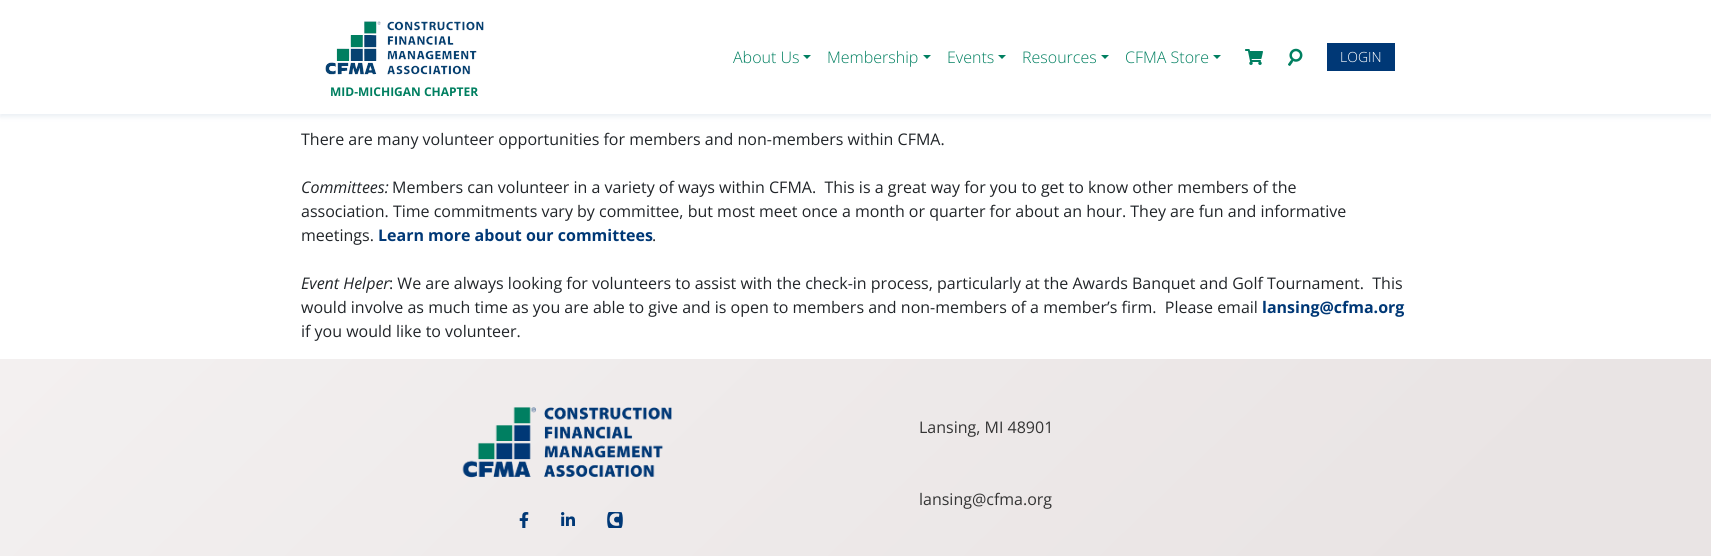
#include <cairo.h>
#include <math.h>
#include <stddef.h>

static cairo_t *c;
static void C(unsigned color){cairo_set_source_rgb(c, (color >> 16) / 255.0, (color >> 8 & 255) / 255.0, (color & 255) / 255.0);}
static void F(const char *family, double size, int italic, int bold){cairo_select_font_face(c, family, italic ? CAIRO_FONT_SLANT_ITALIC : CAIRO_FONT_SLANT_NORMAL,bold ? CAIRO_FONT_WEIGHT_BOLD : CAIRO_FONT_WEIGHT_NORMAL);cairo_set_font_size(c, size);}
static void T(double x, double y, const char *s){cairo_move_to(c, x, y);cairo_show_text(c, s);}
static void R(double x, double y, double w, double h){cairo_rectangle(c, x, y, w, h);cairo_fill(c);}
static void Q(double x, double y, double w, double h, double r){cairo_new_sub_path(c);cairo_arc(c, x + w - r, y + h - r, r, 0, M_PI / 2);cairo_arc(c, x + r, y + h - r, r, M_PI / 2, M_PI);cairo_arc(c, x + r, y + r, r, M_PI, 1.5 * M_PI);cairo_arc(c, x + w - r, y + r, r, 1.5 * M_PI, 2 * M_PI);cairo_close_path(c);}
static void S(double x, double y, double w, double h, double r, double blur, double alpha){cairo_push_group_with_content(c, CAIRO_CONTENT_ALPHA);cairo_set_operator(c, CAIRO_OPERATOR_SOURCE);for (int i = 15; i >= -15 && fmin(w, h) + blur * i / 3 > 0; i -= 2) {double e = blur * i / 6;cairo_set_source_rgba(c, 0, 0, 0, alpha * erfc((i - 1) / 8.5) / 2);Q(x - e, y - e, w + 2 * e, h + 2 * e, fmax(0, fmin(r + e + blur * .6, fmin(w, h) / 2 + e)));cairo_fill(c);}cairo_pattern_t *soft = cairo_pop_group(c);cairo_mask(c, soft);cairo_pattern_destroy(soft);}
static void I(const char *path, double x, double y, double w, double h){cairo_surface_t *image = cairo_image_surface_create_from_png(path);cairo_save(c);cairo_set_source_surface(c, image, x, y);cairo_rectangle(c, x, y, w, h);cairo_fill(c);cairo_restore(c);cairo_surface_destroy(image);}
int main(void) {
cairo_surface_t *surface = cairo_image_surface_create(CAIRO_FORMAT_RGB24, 1711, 556);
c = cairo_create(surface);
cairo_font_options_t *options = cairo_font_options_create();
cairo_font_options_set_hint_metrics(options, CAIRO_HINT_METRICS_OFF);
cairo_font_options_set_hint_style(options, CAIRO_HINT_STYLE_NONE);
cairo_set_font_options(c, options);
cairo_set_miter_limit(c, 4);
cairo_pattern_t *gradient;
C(0xffffff);
cairo_paint(c);
C(0x1a4c83);
S(0,-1,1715,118,0,2.5,.09);
C(0xffffff);
R(0,0,1711,114);
F("Open Sans Light",16,0,0);
C(0x007f60);
T(733,63,"About Us");
cairo_new_path(c);
cairo_move_to(c,803,55);
cairo_line_to(c,811,55);
cairo_line_to(c,807,59);
cairo_close_path(c);
cairo_fill(c);
T(827,63,"Membership");
cairo_new_path(c);
cairo_move_to(c,923,55);
cairo_line_to(c,931,55);
cairo_line_to(c,927,59);
cairo_close_path(c);
cairo_fill(c);
T(947,63,"Events");
cairo_new_path(c);
cairo_move_to(c,998,55);
cairo_line_to(c,1006,55);
cairo_line_to(c,1002,59);
cairo_close_path(c);
cairo_fill(c);
T(1022,63,"Resources");
cairo_new_path(c);
cairo_move_to(c,1101,55);
cairo_line_to(c,1109,55);
cairo_line_to(c,1105,59);
cairo_close_path(c);
cairo_fill(c);
T(1125,63,"CFMA Store");
cairo_new_path(c);
cairo_move_to(c,1213,55);
cairo_line_to(c,1221,55);
cairo_line_to(c,1217,59);
cairo_close_path(c);
cairo_fill(c);
I("1.png",1245,49,18,16);
I("2.png",1288,48,15,18);
C(0x003876);
R(1327,43,68,28);
F("Open Sans Light",14,0,0);
C(0xffffff);
T(1340,62,"LOGIN");
I("3.png",325,21,159,54);
F("Open Sans",12,0,1);
C(0x007f60);
T(330,96,"MID-MICHIGAN CHAPTER");
F("Open Sans",16,0,0);
C(0x212529);
T(301,145,"There are many volunteer opportunities for members and non-members within CFMA.");
F("Open Sans",16,1,0);
T(301,193,"Committees:");
F("Open Sans",16,0,0);
T(392,193,"Members can volunteer in a variety of ways within CFMA.  This is a great way for you to get to know other members of the");
T(301,217,"association. Time commitments vary by committee, but most meet once a month or quarter for about an hour. They are fun and informative");
T(301,241,"meetings.");
F("Open Sans",16,0,1);
C(0x003876);
T(378,241,"Learn more about our committees");
F("Open Sans",16,0,0);
C(0x212529);
T(652,241,".");
F("Open Sans",16,1,0);
T(301,289,"Event Helper");
F("Open Sans",16,0,0);
T(389,289,": We are always looking for volunteers to assist with the check-in process, particularly at the Awards Banquet and Golf Tournament.  This");
T(301,313,"would involve as much time as you are able to give and is open to members and non-members of a member’s firm.  Please email");
F("Open Sans",16,0,1);
C(0x003876);
T(1262,313,"lansing@cfma.org");
F("Open Sans",16,0,0);
C(0x212529);
T(301,337,"if you would like to volunteer.");
gradient = cairo_pattern_create_linear(1318,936,393,-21);
cairo_pattern_add_color_stop_rgba(gradient,.14,0.914,0.894,0.894,1);
cairo_pattern_add_color_stop_rgba(gradient,.99,0.953,0.941,0.941,1);
cairo_set_source(c,gradient);
cairo_pattern_destroy(gradient);
R(0,359,1711,197);
I("4.png",462,407,210,71);
I("5.png",519,512,10,16);
I("6.png",561,512,14,14);
I("7.png",607,512,16,16);
C(0x343434);
T(919,433,"Lansing, MI 48901");
T(919,505,"lansing@cfma.org");
cairo_surface_write_to_png(surface, "o.png");
cairo_font_options_destroy(options);
cairo_destroy(c);
cairo_surface_destroy(surface);
return 0;
}
